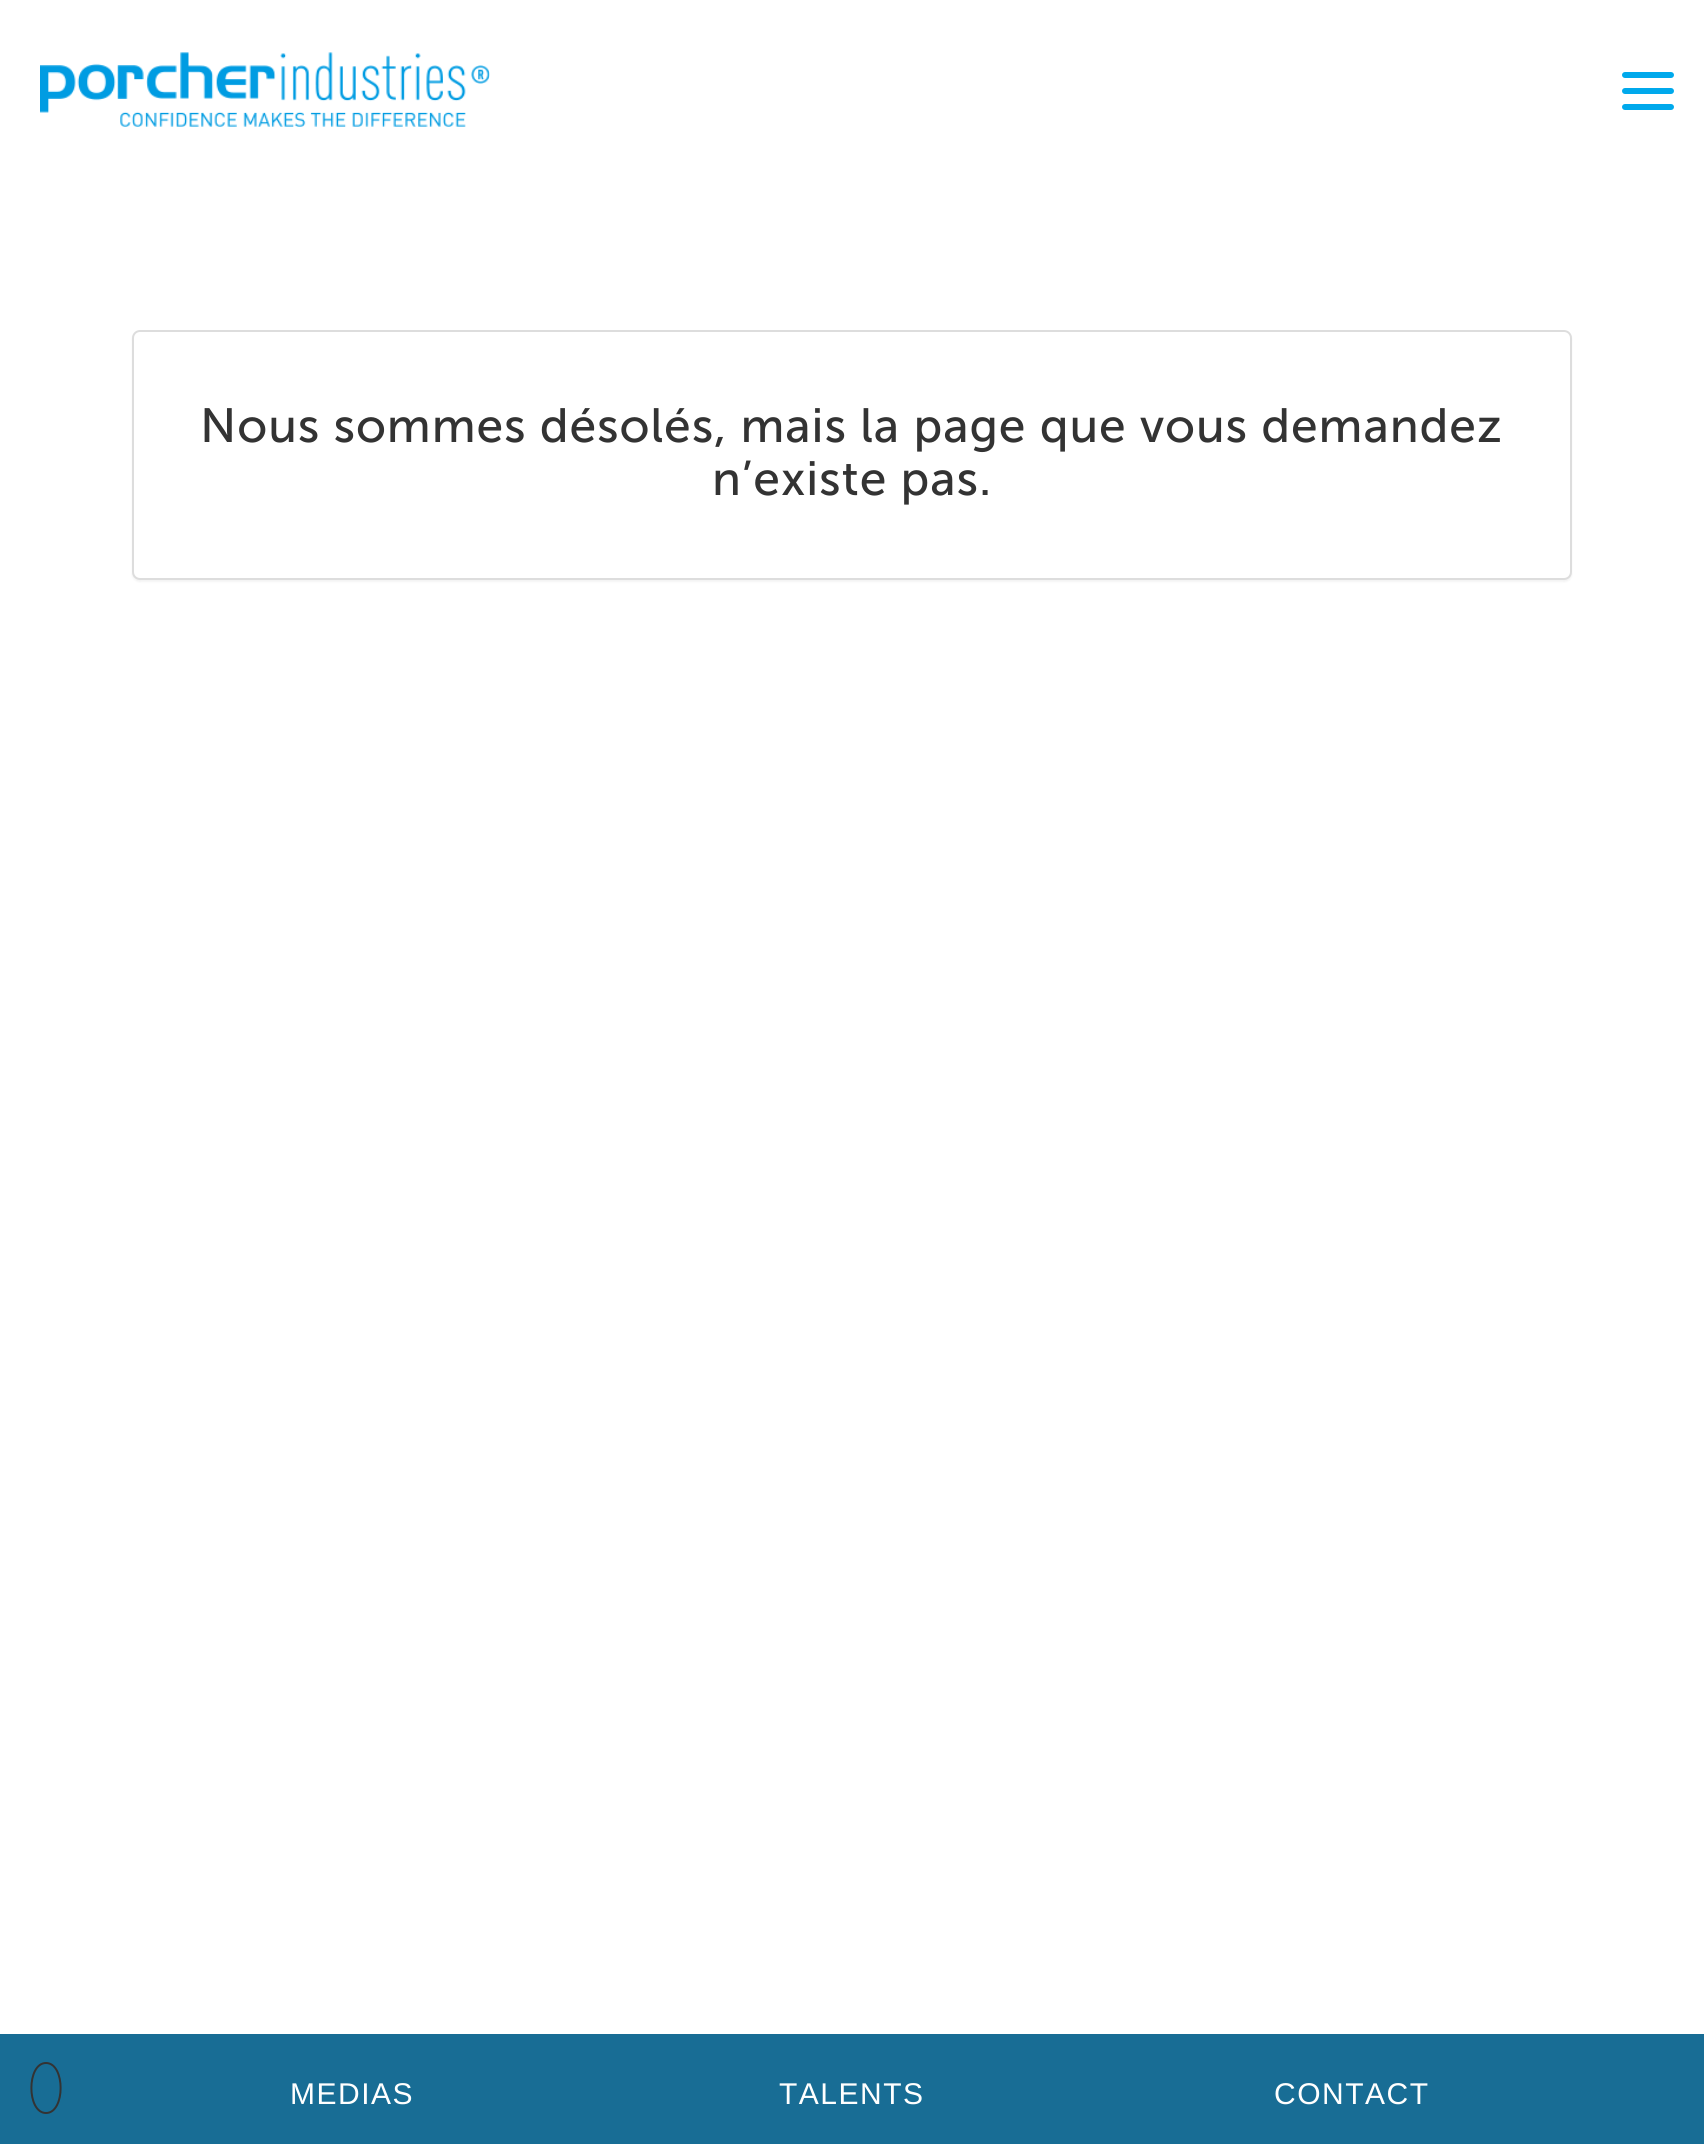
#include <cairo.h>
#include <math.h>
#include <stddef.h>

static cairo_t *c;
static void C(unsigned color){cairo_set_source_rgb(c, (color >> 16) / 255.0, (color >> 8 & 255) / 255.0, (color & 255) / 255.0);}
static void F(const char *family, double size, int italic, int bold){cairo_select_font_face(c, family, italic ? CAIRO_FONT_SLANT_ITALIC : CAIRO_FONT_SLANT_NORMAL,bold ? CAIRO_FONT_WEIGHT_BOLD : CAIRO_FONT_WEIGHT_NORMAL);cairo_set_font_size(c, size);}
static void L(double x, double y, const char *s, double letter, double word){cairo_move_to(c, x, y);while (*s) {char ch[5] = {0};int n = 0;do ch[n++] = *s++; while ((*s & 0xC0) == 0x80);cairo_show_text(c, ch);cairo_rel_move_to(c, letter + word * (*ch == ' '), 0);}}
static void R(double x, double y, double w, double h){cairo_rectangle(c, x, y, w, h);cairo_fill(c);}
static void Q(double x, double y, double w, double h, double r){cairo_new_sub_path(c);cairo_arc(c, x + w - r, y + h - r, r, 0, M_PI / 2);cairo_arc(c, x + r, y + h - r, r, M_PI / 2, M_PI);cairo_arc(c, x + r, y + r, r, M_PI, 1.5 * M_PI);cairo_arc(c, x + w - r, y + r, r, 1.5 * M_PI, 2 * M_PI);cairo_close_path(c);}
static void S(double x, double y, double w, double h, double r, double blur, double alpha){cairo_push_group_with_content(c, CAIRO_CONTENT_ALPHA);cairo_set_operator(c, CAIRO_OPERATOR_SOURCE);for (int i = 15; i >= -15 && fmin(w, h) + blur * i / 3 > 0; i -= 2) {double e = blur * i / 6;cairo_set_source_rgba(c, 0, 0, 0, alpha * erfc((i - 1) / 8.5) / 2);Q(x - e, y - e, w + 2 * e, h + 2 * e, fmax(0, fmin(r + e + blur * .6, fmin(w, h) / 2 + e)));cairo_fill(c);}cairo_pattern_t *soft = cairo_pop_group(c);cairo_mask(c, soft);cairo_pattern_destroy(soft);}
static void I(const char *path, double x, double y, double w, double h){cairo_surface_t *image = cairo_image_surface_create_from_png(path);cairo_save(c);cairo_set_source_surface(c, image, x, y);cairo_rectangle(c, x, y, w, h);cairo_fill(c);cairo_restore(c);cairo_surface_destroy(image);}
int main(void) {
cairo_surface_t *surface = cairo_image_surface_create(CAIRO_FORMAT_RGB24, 1704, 2144);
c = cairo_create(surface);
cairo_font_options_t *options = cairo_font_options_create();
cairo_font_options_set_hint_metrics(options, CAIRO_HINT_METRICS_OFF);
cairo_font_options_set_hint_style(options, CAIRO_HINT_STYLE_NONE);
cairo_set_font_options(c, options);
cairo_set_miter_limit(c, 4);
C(0xffffff);
cairo_paint(c);
I("1.png",40,52,450,75);
C(0x00a9ec);
Q(1622,72,52,6,3);
cairo_fill(c);
Q(1622,88,52,6,3);
cairo_fill(c);
Q(1622,104,52,6,3);
cairo_fill(c);
C(0x000000);
S(132,332,1440,250,8,1,.05);
C(0xffffff);
Q(133,331,1438,248,7);
cairo_fill_preserve(c);
C(0xdddddd);
cairo_stroke(c);
F("Museo Sans",48,0,0);
C(0x333333);
L(200,442,"Nous sommes désolés, mais la page que vous demandez",.95,0);
L(712,495,"n’existe pas.",.95,0);
C(0x186d95);
R(0,2034,1704,110);
cairo_new_path(c);
cairo_move_to(c,46,2063);
cairo_curve_to(c,65.5,2063,65.5,2113,46,2113);
cairo_curve_to(c,26.5,2113,26.5,2063,46,2063);
cairo_close_path(c);
C(0x333333);
cairo_stroke(c);
F("Liberation Sans",30,0,0);
C(0xffffff);
L(290,2104,"MEDIAS",1.5,0);
L(779,2104,"TALENTS",1.5,0);
L(1274,2104,"CONTACT",1.5,0);
cairo_surface_write_to_png(surface, "o.png");
cairo_font_options_destroy(options);
cairo_destroy(c);
cairo_surface_destroy(surface);
return 0;
}
